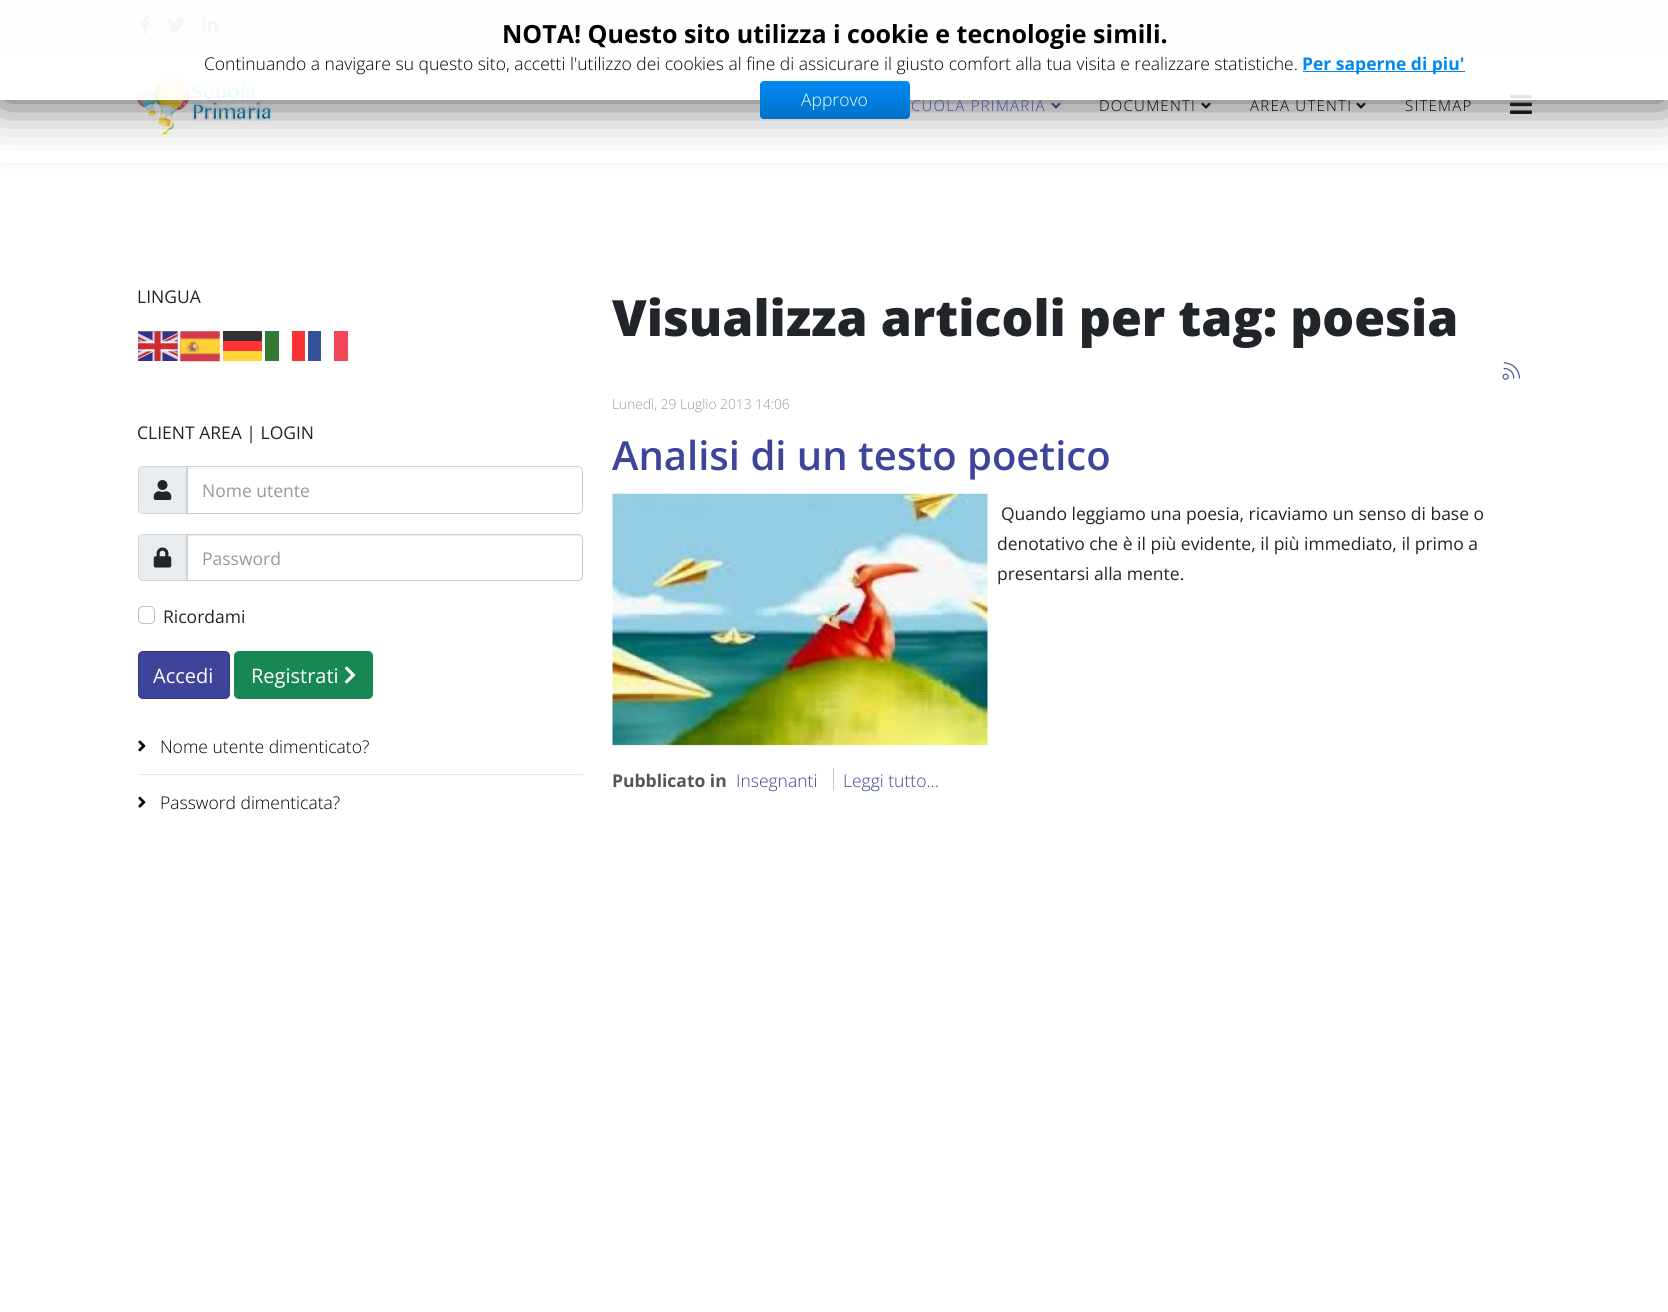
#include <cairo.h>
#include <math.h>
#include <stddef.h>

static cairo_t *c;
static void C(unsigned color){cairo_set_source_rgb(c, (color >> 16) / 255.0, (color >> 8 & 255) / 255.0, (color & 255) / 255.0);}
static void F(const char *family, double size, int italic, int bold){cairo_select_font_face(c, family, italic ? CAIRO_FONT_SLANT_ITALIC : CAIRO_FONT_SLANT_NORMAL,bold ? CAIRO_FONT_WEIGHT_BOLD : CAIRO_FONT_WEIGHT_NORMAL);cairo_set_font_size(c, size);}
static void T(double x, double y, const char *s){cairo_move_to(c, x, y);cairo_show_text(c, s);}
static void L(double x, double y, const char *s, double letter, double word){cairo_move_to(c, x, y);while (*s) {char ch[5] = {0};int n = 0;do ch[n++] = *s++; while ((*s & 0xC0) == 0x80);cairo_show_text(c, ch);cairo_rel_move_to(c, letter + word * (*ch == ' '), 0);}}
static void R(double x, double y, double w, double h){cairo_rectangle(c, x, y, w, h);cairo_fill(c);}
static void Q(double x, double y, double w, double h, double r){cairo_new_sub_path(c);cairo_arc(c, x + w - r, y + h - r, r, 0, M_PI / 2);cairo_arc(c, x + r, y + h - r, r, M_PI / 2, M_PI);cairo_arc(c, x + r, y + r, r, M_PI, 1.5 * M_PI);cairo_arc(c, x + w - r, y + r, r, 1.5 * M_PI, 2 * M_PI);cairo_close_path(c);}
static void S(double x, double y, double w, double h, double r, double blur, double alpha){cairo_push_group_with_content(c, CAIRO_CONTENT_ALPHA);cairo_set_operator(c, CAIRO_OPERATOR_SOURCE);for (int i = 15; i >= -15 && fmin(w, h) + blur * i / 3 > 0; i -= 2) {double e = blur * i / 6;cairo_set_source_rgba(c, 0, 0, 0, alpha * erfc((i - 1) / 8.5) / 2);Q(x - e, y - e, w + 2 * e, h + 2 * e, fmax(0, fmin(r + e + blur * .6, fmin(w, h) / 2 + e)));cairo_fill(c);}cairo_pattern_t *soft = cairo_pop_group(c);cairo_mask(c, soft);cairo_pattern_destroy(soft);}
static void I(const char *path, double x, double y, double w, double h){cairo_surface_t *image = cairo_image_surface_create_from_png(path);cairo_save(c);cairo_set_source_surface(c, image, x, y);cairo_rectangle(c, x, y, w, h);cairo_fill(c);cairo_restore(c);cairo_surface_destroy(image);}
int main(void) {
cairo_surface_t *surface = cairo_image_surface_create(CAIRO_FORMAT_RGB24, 1668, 1312);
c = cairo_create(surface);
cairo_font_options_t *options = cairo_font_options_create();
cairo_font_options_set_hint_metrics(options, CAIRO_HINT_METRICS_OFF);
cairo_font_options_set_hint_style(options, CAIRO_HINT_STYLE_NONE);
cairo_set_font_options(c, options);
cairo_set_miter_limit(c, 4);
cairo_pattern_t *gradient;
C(0xffffff);
cairo_paint(c);
C(0xf5f5f5);
R(0,0,1668,50);
I("1.png",140,15,11,19);
I("2.png",167,17,18,15);
I("3.png",202,16,16,16);
C(0x000000);
S(0,54,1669,112,0,2,.05);
C(0xffffff);
R(0,52,1668,111);
I("13.png",137,78,135,57);
I("14.png",1051,102,10,7);
I("15.png",1201,102,10,7);
I("15.png",1356,102,10,7);
I("16.png",1510,94,22,20);
cairo_save(c);
cairo_rectangle(c,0,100,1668,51);
cairo_clip(c);
C(0x444444);
S(0,0,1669,100,0,25,1);
cairo_restore(c);
cairo_set_source_rgba(c,1,1,1,0.9);
R(0,0,1668,99);
C(0xffffff);
R(137,99,118,1);
F("Open Sans",25,0,1);
C(0x000000);
T(502,43,"NOTA! Questo sito utilizza i cookie e tecnologie simili.");
F("Open Sans Light",17.5,0,0);
T(204,70,"Continuando a navigare su questo sito, accetti l'utilizzo dei cookies al fine di assicurare il giusto comfort alla tua visita e realizzare statistiche.");
C(0x0089f2);
R(1303,71,162,1);
F("Open Sans",17.5,0,1);
T(1302,70,"Per saperne di piu'");
gradient = cairo_pattern_create_linear(835,81,835,119);
cairo_pattern_add_color_stop_rgba(gradient,0,0,0.537,0.949,1);
cairo_pattern_add_color_stop_rgba(gradient,1,0,0.447,0.792,1);
cairo_set_source(c,gradient);
cairo_pattern_destroy(gradient);
Q(760,81,150,38,4);
cairo_fill(c);
F("Open Sans Light",17.5,0,0);
C(0xffffff);
T(801,106,"Approvo");
F("Open Sans",17.5,0,0);
C(0x212529);
T(137,303,"LINGUA");
I("4.png",138,331,40,30);
I("5.png",179,331,41,31);
C(0x333333);
R(223,331,39,10);
C(0x337933);
R(265,331,14,30);
C(0xfd3333);
R(292,331,13,30);
C(0x335199);
R(308,331,13,30);
C(0xf54659);
R(334,331,14,30);
C(0xff3333);
R(223,341,39,10);
C(0xffd633);
R(223,351,39,10);
C(0x212529);
T(137,439,"CLIENT AREA | LOGIN");
C(0xe9ecef);
cairo_new_path(c);
cairo_move_to(c,143,466.5);
cairo_line_to(c,187.5,466.5);
cairo_line_to(c,187.5,513.5);
cairo_line_to(c,143,513.5);
cairo_curve_to(c,140.5,513.5,138.5,511.5,138.5,509);
cairo_line_to(c,138.5,471);
cairo_curve_to(c,138.5,468.5,140.5,466.5,143,466.5);
cairo_close_path(c);
cairo_fill_preserve(c);
C(0xced4da);
cairo_set_line_width(c,1);
cairo_stroke(c);
I("6.png",153,480,19,20);
C(0xececec);
cairo_new_path(c);
cairo_move_to(c,188,469);
cairo_line_to(c,579,469);
cairo_line_to(c,580,470);
cairo_curve_to(c,580,469,578,468,577,468);
cairo_line_to(c,188,468);
cairo_close_path(c);
cairo_fill(c);
cairo_new_path(c);
cairo_move_to(c,186.5,466.5);
cairo_line_to(c,578,466.5);
cairo_curve_to(c,580.5,466.5,582.5,468.5,582.5,471);
cairo_line_to(c,582.5,509);
cairo_curve_to(c,582.5,511.5,580.5,513.5,578,513.5);
cairo_line_to(c,186.5,513.5);
cairo_close_path(c);
C(0xcccccc);
cairo_stroke(c);
C(0x999999);
T(202,497,"Nome utente");
C(0xe9ecef);
cairo_new_path(c);
cairo_move_to(c,143,534.5);
cairo_line_to(c,187.5,534.5);
cairo_line_to(c,187.5,580.5);
cairo_line_to(c,143,580.5);
cairo_curve_to(c,140.5,580.5,138.5,578.5,138.5,576);
cairo_line_to(c,138.5,539);
cairo_curve_to(c,138.5,536.5,140.5,534.5,143,534.5);
cairo_close_path(c);
cairo_fill_preserve(c);
C(0xced4da);
cairo_stroke(c);
I("7.png",153,547,19,21);
C(0xececec);
cairo_new_path(c);
cairo_move_to(c,188,536);
cairo_line_to(c,578,536);
cairo_curve_to(c,580,536,581,538,581,540);
cairo_curve_to(c,581,537,580,535,577,535);
cairo_line_to(c,188,535);
cairo_close_path(c);
cairo_fill(c);
cairo_new_path(c);
cairo_move_to(c,186.5,534.5);
cairo_line_to(c,578,534.5);
cairo_curve_to(c,580.5,534.5,582.5,536.5,582.5,539);
cairo_line_to(c,582.5,576);
cairo_curve_to(c,582.5,578.5,580.5,580.5,578,580.5);
cairo_line_to(c,186.5,580.5);
cairo_close_path(c);
C(0xcccccc);
cairo_stroke(c);
C(0x999999);
T(202,565,"Password");
Q(138.5,606.5,16,17,4.5);
C(0xbfbfbf);
cairo_stroke(c);
C(0x212529);
T(163,623,"Ricordami");
C(0x3d449a);
Q(138.5,651.5,91,47,4.5);
cairo_fill_preserve(c);
C(0x343a84);
cairo_stroke(c);
F("Open Sans",20,0,0);
C(0xffffff);
T(153,683,"Accedi");
C(0x198754);
Q(234.5,651.5,138,47,4.5);
cairo_fill_preserve(c);
cairo_stroke(c);
C(0xffffff);
T(251,683,"Registrati");
I("8.png",344,666,12,18);
C(0xe8e8e8);
R(138,774,445,1);
I("9.png",138,740,8,12);
F("Open Sans Light",17.5,0,0);
C(0x000000);
T(160,753,"Nome utente dimenticato?");
I("10.png",138,796,8,12);
T(160,809,"Password dimenticata?");
F("Open Sans ExtraBold",50,0,0);
C(0x212529);
T(612,336,"Visualizza articoli per tag: poesia");
I("11.png",1502,362,18,18);
F("Open Sans Light",13.75,0,0);
C(0x999999);
T(612,409,"Lunedì, 29 Luglio 2013 14:06");
F("Open Sans SemiBold",40,0,0);
C(0x3d449a);
T(612,470,"Analisi di un testo poetico");
I("12.png",612,493,376,253);
F("Open Sans",17.5,0,0);
C(0x212529);
T(1001,520,"Quando leggiamo una poesia, ricaviamo un senso di base o");
T(997,550,"denotativo che è il più evidente, il più immediato, il primo a");
T(997,580,"presentarsi alla mente.");
F("Open Sans",17.5,0,1);
C(0x555555);
T(612,787,"Pubblicato in");
F("Open Sans Light",17.5,0,0);
C(0x3d449a);
T(736,787,"Insegnanti");
C(0xcccccc);
R(833,768,1,23);
C(0x3d449a);
T(843,787,"Leggi tutto...");
F("Open Sans Light",15,0,0);
L(911,111,"CUOLA PRIMARIA",1.25,0);
C(0x000000);
L(1099,111,"DOCUMENTI",1.25,0);
L(1250,111,"AREA UTENTI",1.25,0);
L(1405,111,"SITEMAP",1.25,0);
cairo_surface_write_to_png(surface, "o.png");
cairo_font_options_destroy(options);
cairo_destroy(c);
cairo_surface_destroy(surface);
return 0;
}
